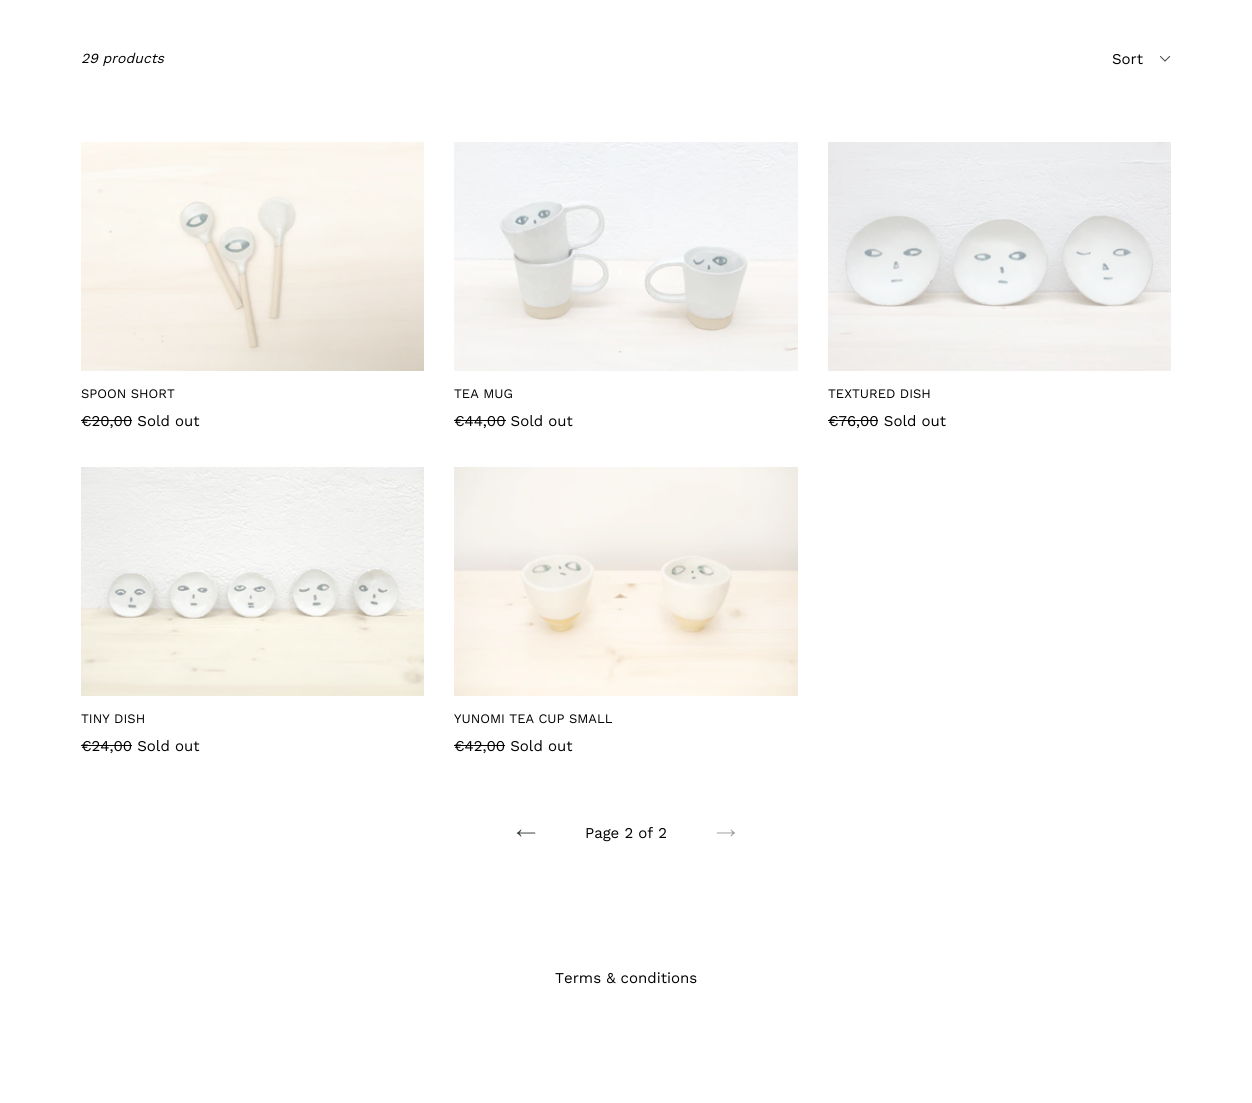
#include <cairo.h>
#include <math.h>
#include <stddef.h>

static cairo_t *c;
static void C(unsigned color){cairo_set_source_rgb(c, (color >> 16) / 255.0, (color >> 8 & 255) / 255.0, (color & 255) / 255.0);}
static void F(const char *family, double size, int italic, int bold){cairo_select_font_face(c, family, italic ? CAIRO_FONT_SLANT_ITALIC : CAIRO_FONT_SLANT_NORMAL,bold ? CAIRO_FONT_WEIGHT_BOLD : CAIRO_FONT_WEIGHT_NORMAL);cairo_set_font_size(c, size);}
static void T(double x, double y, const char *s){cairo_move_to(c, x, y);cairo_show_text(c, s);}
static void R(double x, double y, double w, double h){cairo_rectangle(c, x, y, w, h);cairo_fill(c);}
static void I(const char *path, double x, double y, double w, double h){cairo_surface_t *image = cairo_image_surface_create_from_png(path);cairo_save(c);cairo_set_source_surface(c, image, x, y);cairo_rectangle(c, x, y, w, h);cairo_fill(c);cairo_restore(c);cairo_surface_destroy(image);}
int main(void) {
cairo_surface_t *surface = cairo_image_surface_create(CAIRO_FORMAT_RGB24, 1252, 1103);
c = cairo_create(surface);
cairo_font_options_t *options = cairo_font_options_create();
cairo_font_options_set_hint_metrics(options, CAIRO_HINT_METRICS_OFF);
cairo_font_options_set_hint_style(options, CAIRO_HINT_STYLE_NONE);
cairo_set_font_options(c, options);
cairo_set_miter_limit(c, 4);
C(0xffffff);
cairo_paint(c);
F("Work Sans",14,1,0);
C(0x000000);
T(81,63,"29 products");
I("1.png",1159,55,12,7);
F("Work Sans",15,0,0);
T(1112,64,"Sort");
I("2.png",81,142,343,229);
F("Work Sans",13,0,0);
T(81,398,"SPOON SHORT");
F("Work Sans",15,0,0);
T(81,426,"€20,00 Sold out");
R(81,420,51,1);
I("3.png",454,142,344,229);
F("Work Sans",13,0,0);
T(454,398,"TEA MUG");
F("Work Sans",15,0,0);
T(454,426,"€44,00 Sold out");
R(454,420,52,1);
I("4.png",828,142,343,229);
F("Work Sans",13,0,0);
T(828,398,"TEXTURED DISH");
F("Work Sans",15,0,0);
T(828,426,"€76,00 Sold out");
R(828,420,50,1);
I("5.png",81,467,343,229);
F("Work Sans",13,0,0);
T(81,723,"TINY DISH");
F("Work Sans",15,0,0);
T(81,751,"€24,00 Sold out");
R(81,745,51,1);
I("6.png",454,467,344,229);
F("Work Sans",13,0,0);
T(454,723,"YUNOMI TEA CUP SMALL");
F("Work Sans",15,0,0);
T(454,751,"€42,00 Sold out");
R(454,745,51,1);
I("7.png",516,829,20,8);
T(585,838,"Page 2 of 2");
I("8.png",716,829,20,8);
T(555,983,"Terms & conditions");
cairo_surface_write_to_png(surface, "o.png");
cairo_font_options_destroy(options);
cairo_destroy(c);
cairo_surface_destroy(surface);
return 0;
}
